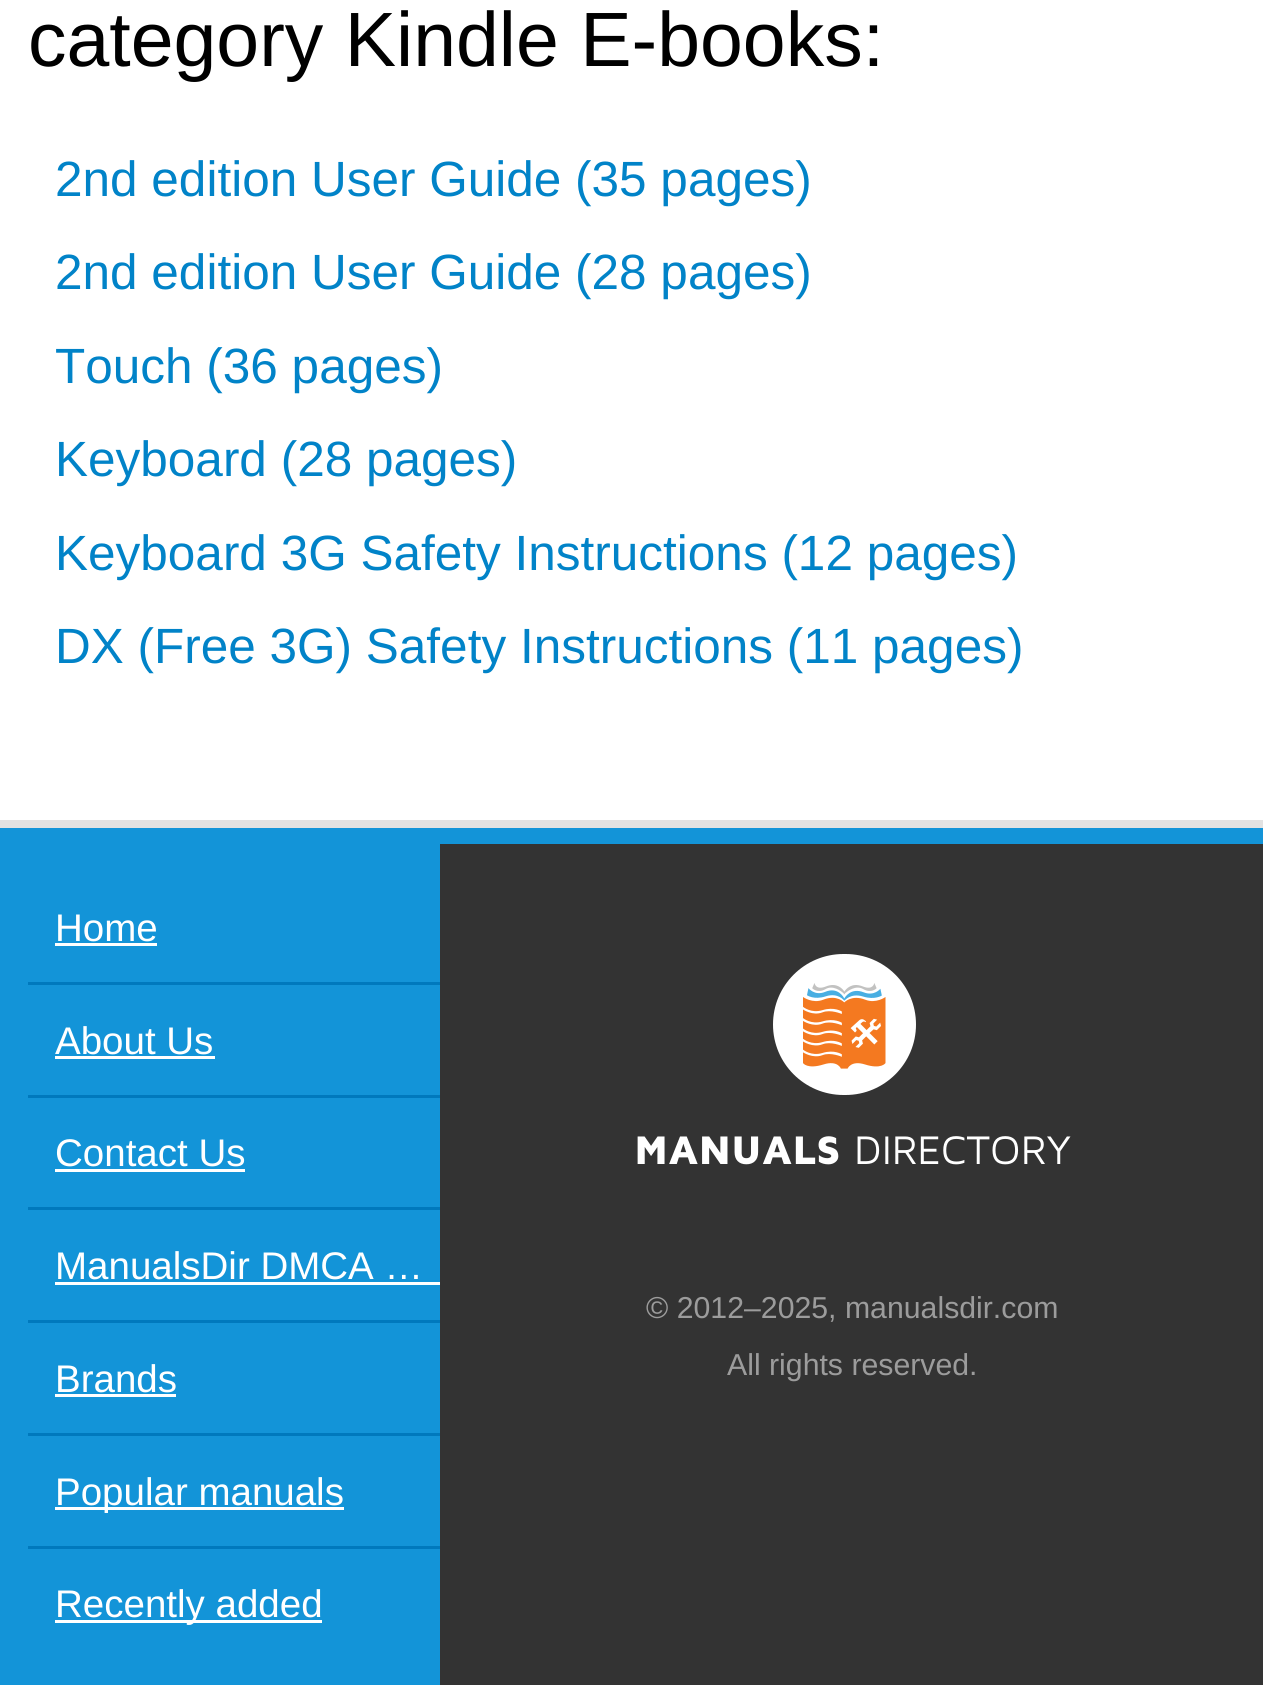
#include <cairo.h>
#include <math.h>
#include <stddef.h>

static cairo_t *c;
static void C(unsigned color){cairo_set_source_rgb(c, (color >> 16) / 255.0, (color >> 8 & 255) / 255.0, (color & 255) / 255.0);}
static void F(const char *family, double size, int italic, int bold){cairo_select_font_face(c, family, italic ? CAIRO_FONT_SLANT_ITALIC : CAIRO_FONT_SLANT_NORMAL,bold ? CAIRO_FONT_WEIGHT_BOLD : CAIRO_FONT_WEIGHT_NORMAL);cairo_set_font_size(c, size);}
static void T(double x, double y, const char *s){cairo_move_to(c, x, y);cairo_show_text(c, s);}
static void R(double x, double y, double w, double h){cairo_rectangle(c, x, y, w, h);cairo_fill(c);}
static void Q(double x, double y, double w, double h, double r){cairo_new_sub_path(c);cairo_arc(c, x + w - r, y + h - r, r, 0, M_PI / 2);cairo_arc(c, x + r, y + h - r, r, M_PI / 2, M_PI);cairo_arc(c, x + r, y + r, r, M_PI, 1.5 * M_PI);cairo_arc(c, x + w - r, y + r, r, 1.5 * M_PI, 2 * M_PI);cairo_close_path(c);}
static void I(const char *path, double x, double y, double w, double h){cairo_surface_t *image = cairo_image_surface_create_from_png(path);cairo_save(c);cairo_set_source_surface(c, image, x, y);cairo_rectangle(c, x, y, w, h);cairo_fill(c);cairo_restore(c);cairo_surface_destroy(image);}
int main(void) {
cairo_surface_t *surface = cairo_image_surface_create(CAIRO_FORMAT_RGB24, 1263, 1685);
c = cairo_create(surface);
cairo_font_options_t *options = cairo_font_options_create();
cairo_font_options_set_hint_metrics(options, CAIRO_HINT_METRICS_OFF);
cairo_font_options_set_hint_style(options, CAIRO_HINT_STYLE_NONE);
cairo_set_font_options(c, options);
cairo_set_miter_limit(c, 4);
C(0x333333);
cairo_paint(c);
C(0xffffff);
R(0,0,1263,820);
C(0xe2e2e2);
R(0,820,1263,8);
F("Liberation Sans",77,0,0);
C(0x000000);
T(28,66,"category Kindle E-books:");
F("Liberation Sans",49.5,0,0);
C(0x0183c8);
T(55,196,"2nd edition User Guide (35 pages)");
T(55,289,"2nd edition User Guide (28 pages)");
T(55,383,"Touch (36 pages)");
T(55,476,"Keyboard (28 pages)");
T(55,570,"Keyboard 3G Safety Instructions (12 pages)");
T(55,663,"DX (Free 3G) Safety Instructions (11 pages)");
C(0x1394d8);
R(0,828,1263,16);
R(0,844,440,841);
F("Liberation Sans",38.5,0,0);
C(0xffffff);
T(55,941,"Home");
R(55,943,102,3);
C(0x0079bd);
R(28,982,412,3);
C(0xffffff);
T(55,1054,"About Us");
R(55,1056,160,3);
C(0x0079bd);
R(28,1095,412,3);
C(0xffffff);
T(55,1166,"Contact Us");
R(55,1169,190,3);
C(0x0079bd);
R(28,1207,412,3);
C(0xffffff);
T(55,1279,"ManualsDir DMCA …");
R(55,1282,385,3);
C(0x0079bd);
R(28,1320,412,3);
C(0xffffff);
T(55,1392,"Brands");
R(55,1394,121,3);
C(0x0079bd);
R(28,1433,412,3);
C(0xffffff);
R(55,1507,289,3);
T(55,1505,"Popular manuals");
C(0x0079bd);
R(28,1546,412,3);
C(0xffffff);
R(55,1620,267,3);
T(55,1617,"Recently added");
Q(773,954,143,141,70.5);
cairo_fill(c);
I("1.png",803,983,83,86);
F("Maven Pro Black",41.25,0,0);
T(634,1164,"MANUALS");
F("Maven Pro",41.25,0,0);
T(854,1164,"DIRECTORY");
F("Liberation Sans",30.25,0,0);
C(0x9c9c9c);
T(646,1318,"© 2012–2025, manualsdir.com");
T(727,1375,"All rights reserved.");
cairo_surface_write_to_png(surface, "o.png");
cairo_font_options_destroy(options);
cairo_destroy(c);
cairo_surface_destroy(surface);
return 0;
}
